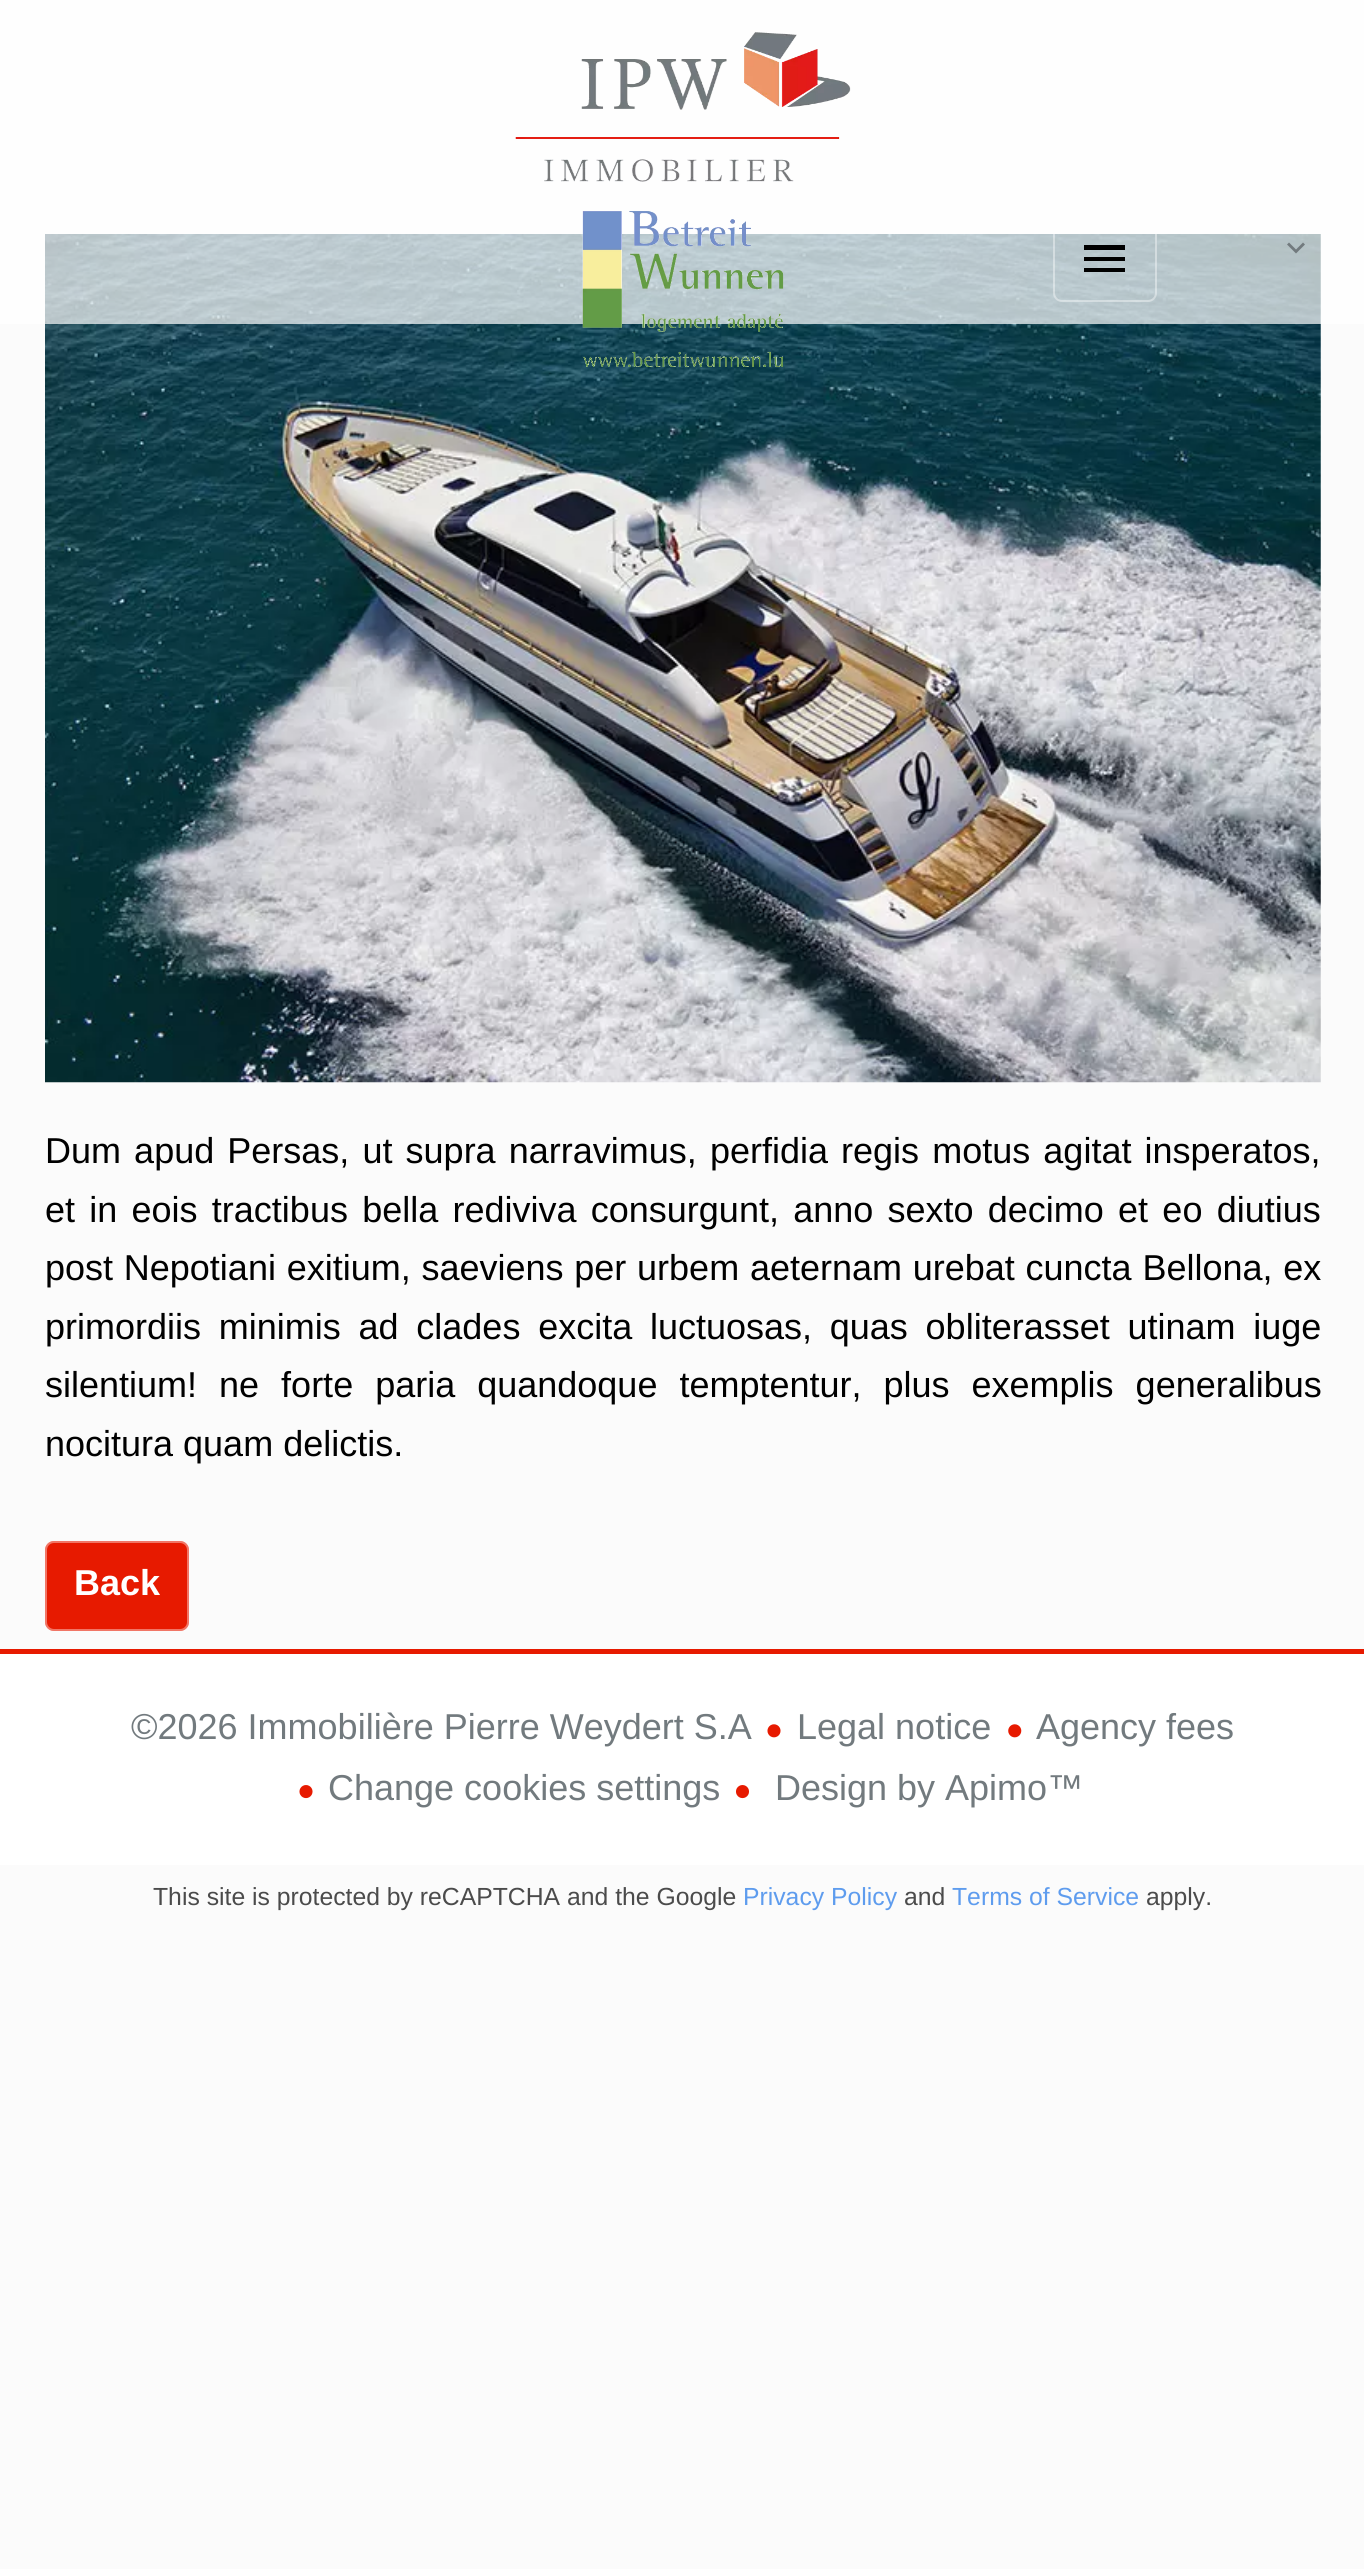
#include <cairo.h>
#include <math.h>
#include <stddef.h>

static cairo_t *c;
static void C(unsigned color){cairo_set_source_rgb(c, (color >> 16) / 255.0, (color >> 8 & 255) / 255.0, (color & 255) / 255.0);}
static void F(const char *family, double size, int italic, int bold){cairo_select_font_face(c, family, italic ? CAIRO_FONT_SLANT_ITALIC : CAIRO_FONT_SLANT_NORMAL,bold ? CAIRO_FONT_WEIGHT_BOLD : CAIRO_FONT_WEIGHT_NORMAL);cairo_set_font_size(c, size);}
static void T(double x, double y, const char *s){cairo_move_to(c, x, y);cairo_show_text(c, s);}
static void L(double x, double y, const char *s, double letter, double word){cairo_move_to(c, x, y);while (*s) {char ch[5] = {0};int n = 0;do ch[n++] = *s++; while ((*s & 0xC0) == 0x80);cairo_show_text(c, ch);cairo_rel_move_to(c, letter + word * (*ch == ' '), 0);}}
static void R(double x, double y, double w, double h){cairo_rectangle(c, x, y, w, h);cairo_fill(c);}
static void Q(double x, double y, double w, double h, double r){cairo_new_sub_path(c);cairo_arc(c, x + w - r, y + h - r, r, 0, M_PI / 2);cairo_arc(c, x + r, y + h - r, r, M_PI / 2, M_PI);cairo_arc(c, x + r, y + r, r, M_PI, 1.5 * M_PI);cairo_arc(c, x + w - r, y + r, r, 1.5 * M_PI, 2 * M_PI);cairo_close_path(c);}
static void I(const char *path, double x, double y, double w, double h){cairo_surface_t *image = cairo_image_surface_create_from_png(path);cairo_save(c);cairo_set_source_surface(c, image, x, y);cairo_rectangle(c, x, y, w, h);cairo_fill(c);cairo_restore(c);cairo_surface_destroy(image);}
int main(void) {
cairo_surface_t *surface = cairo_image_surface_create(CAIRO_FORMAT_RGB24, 1364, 2569);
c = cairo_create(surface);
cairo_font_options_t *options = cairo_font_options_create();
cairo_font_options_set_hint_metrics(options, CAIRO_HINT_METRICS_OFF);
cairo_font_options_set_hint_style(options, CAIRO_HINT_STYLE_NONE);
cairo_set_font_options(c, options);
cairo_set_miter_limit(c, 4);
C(0xfbfbfb);
cairo_paint(c);
I("3.png",45,234,1276,849);
cairo_set_source_rgba(c,1,1,1,0.7);
R(0,0,1364,324);
I("1.png",515,32,336,150);
I("2.png",582,211,202,156);
Q(1054,219,102,82,8);
cairo_set_source_rgba(c,1,1,1,0.4);
cairo_stroke(c);
C(0x000000);
cairo_new_path(c);
cairo_move_to(c,1084,245);
cairo_line_to(c,1125,245);
cairo_line_to(c,1125,250);
cairo_line_to(c,1084,250);
cairo_close_path(c);
cairo_move_to(c,1084,257);
cairo_line_to(c,1125,257);
cairo_line_to(c,1125,261);
cairo_line_to(c,1084,261);
cairo_close_path(c);
cairo_move_to(c,1084,268);
cairo_line_to(c,1125,268);
cairo_line_to(c,1125,272);
cairo_line_to(c,1084,272);
cairo_close_path(c);
cairo_fill(c);
C(0x727a7e);
cairo_new_path(c);
cairo_move_to(c,1289,242.5);
cairo_line_to(c,1296,249.5);
cairo_line_to(c,1303,242.5);
cairo_line_to(c,1305,244.5);
cairo_line_to(c,1296,253.5);
cairo_line_to(c,1287,244.5);
cairo_close_path(c);
cairo_fill(c);
F("Liberation Sans",36,0,0);
C(0x000000);
L(45,1163,"Dum apud Persas, ut supra narravimus, perfidia regis motus agitat insperatos,",0,3.1);
L(45,1222,"et in eois tractibus bella rediviva consurgunt, anno sexto decimo et eo diutius",0,4.25);
L(45,1280,"post Nepotiani exitium, saeviens per urbem aeternam urebat cuncta Bellona, ex",0,.75);
L(45,1339,"primordiis minimis ad clades excita luctuosas, quas obliterasset utinam iuge",0,7.75);
L(45,1397,"silentium! ne forte paria quandoque temptentur, plus exemplis generalibus",0,12);
T(45,1456,"nocitura quam delictis.");
C(0xe71a00);
Q(45,1541,144,90,9);
cairo_fill(c);
Q(46,1542,142,88,8);
cairo_set_source_rgba(c,1,1,1,0.4);
cairo_stroke(c);
F("Liberation Sans",36,0,1);
C(0xffffff);
T(74,1595,"Back");
C(0xe71a00);
R(0,1649,1364,5);
C(0xffffff);
R(0,1654,1364,211);
F("Liberation Sans",36,0,0);
C(0x727a7e);
T(131,1739,"©2026 Immobilière Pierre Weydert S.A");
I("4.png",767,1724,14,14);
T(797,1739,"Legal notice");
I("5.png",1008,1724,14,14);
T(1036,1739,"Agency fees");
I("6.png",299,1785,14,14);
T(328,1800,"Change cookies settings");
I("7.png",736,1785,13,14);
T(775,1800,"Design by Apimo™");
F("Liberation Sans",24.75,0,0);
C(0x4b4b4b);
T(153,1905,"This site is protected by reCAPTCHA and the Google");
C(0x5e9cee);
T(743,1905,"Privacy Policy");
C(0x4b4b4b);
T(904,1905,"and");
C(0x5e9cee);
T(952,1905,"Terms of Service");
C(0x4b4b4b);
T(1146,1905,"apply.");
cairo_surface_write_to_png(surface, "o.png");
cairo_font_options_destroy(options);
cairo_destroy(c);
cairo_surface_destroy(surface);
return 0;
}
